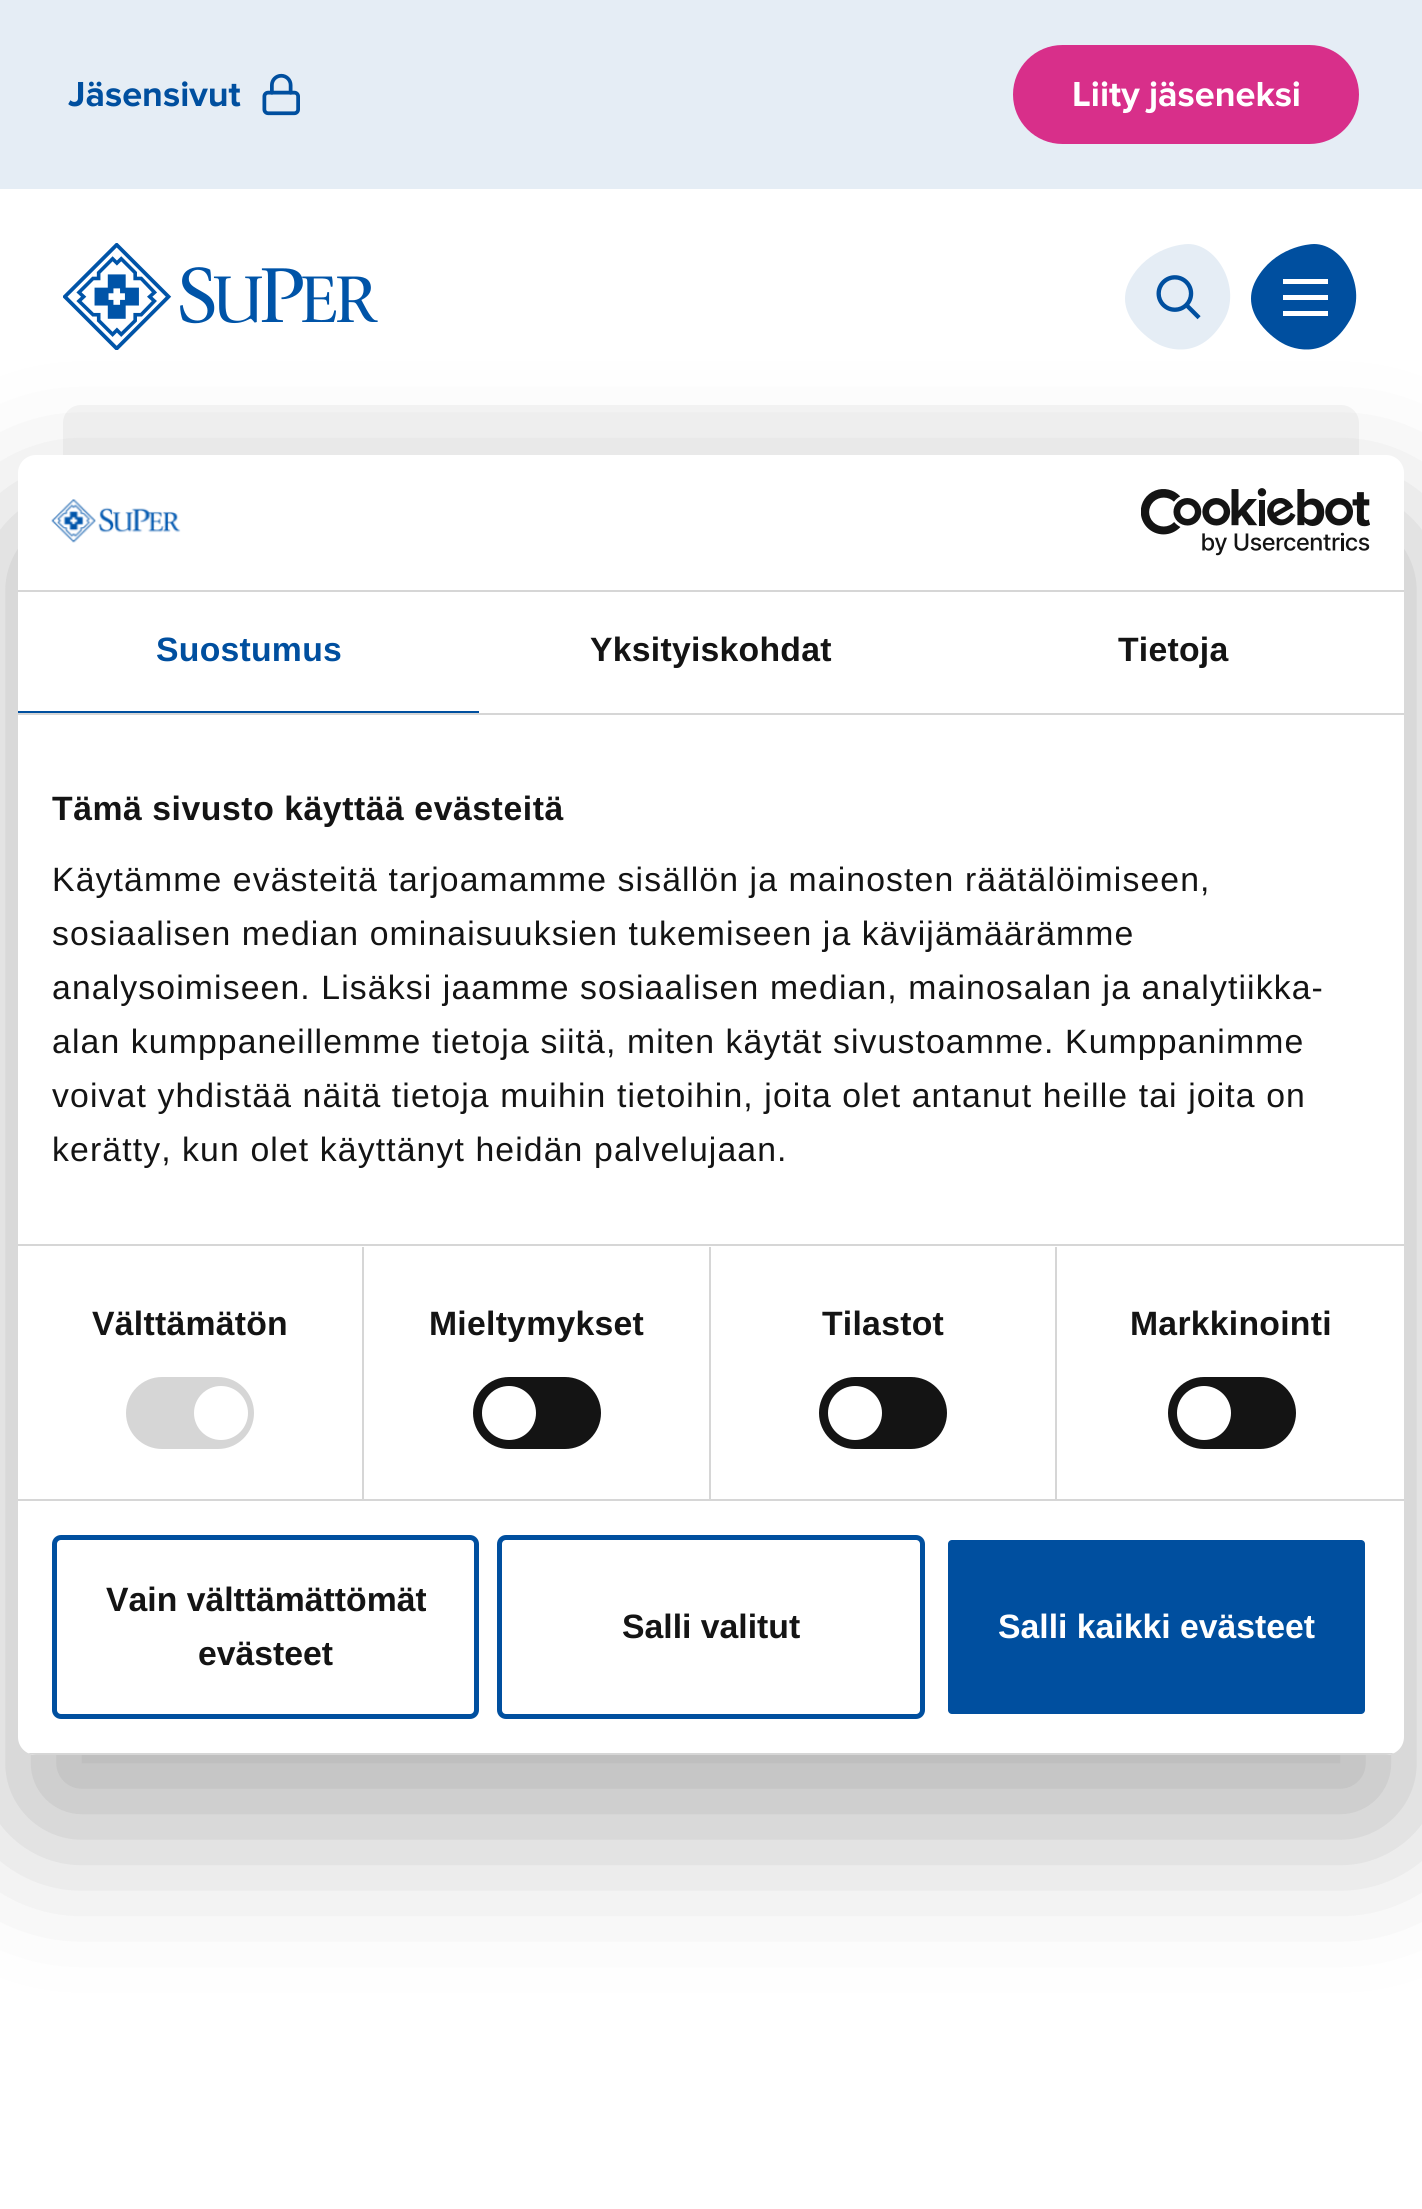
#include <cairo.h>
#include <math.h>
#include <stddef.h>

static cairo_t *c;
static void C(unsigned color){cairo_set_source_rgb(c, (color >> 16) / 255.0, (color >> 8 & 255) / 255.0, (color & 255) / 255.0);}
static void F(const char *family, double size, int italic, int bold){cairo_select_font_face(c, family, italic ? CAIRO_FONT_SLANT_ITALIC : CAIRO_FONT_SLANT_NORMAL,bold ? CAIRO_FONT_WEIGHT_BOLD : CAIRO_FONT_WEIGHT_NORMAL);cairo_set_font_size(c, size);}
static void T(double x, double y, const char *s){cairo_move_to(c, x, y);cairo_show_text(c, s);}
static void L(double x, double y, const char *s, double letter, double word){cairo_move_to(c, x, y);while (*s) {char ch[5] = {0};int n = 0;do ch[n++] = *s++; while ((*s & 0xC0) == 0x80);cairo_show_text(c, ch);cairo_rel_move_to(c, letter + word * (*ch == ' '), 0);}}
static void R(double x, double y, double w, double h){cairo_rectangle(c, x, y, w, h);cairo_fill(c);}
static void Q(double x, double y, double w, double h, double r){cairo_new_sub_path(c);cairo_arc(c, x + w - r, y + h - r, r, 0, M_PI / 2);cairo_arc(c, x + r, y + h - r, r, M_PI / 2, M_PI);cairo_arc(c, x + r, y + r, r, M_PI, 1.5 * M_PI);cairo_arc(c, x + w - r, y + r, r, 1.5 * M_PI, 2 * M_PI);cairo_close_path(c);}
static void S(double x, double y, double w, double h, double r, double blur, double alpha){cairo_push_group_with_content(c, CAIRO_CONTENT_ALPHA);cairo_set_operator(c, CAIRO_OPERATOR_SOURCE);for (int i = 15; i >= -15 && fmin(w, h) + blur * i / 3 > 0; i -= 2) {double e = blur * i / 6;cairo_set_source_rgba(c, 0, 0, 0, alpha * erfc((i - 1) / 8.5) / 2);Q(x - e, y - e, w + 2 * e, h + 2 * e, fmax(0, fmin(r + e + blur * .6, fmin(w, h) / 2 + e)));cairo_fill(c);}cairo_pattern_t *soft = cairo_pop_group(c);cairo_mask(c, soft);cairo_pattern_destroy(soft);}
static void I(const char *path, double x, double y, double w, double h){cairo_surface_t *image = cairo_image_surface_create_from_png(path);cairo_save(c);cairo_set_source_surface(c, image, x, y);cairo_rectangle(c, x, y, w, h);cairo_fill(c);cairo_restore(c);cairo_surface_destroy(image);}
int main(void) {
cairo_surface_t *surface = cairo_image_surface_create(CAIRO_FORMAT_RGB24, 1422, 2209);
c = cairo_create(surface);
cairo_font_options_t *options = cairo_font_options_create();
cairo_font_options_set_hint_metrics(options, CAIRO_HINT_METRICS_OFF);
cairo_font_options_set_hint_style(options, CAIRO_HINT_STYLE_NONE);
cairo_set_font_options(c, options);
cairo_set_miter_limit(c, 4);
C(0xffffff);
cairo_paint(c);
C(0xe5edf5);
R(0,0,1422,189);
F("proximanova",36,0,1);
C(0x004f9f);
T(68,106,"Jäsensivut");
I("1.png",262,73,38,43);
C(0xd82f8a);
Q(1013,45,346,99,49.5);
cairo_fill(c);
C(0xffffff);
T(1072,106,"Liity jäseneksi");
I("2.png",63,243,315,107);
C(0xe5edf5);
cairo_new_path(c);
cairo_move_to(c,1188,244);
cairo_curve_to(c,1183,244,1148,247,1130,280);
cairo_curve_to(c,1111,315,1152,341,1156,343);
cairo_curve_to(c,1161,346,1198,365,1224,320);
cairo_curve_to(c,1242,289,1218,244,1188,244);
cairo_fill(c);
I("3.png",1156,275,45,45);
C(0x004f9f);
cairo_new_path(c);
cairo_move_to(c,1314,244);
cairo_curve_to(c,1309,244,1274,247,1256,280);
cairo_curve_to(c,1237,315,1278,341,1282,343);
cairo_curve_to(c,1287,346,1324,365,1350,320);
cairo_curve_to(c,1368,289,1344,244,1314,244);
cairo_fill(c);
C(0xffffff);
R(1283,279,45,5);
R(1283,295,45,5);
R(1283,311,45,5);
C(0xf5f5f5);
Q(63,405,1296,119,18);
cairo_fill(c);
C(0x000000);
S(18,527,1386,1300,18,76.5,.3);
C(0xffffff);
Q(18,455,1386,1300,18);
cairo_fill(c);
C(0xd6d6d6);
R(18,590,1386,2);
I("4.png",51,499,130,44);
I("5.png",1141,488,229,68);
R(18,713,1386,2);
C(0x004f9f);
R(18,711,461,2);
F("Liberation Sans",33.75,0,1);
L(156,661,"Suostumus",.25,0);
C(0x141414);
L(590,661,"Yksityiskohdat",.25,0);
L(1118,661,"Tietoja",.25,0);
C(0xd6d6d6);
R(18,1244,1386,2);
C(0x141414);
L(52,820,"Tämä sivusto käyttää evästeitä",.55,0);
F("Liberation Sans",33.75,0,0);
L(52,891,"Käytämme evästeitä tarjoamamme sisällön ja mainosten räätälöimiseen,",1.12,0);
L(52,945,"sosiaalisen median ominaisuuksien tukemiseen ja kävijämäärämme",1.12,0);
L(52,999,"analysoimiseen. Lisäksi jaamme sosiaalisen median, mainosalan ja analytiikka-",1.12,0);
L(52,1053,"alan kumppaneillemme tietoja siitä, miten käytät sivustoamme. Kumppanimme",1.12,0);
L(52,1107,"voivat yhdistää näitä tietoja muihin tietoihin, joita olet antanut heille tai joita on",1.12,0);
L(52,1161,"kerätty, kun olet käyttänyt heidän palvelujaan.",1.12,0);
C(0xd6d6d6);
R(18,1499,1386,2);
R(362,1247,2,252);
F("Liberation Sans",33.75,0,1);
C(0x141414);
L(92,1335,"Välttämätön",.25,0);
C(0xd6d6d6);
Q(126,1377,128,72,36);
cairo_fill(c);
C(0xffffff);
cairo_arc(c,221,1413,27,0,2 * M_PI);
cairo_fill(c);
C(0xd6d6d6);
R(709,1247,2,252);
C(0x141414);
L(429,1335,"Mieltymykset",.25,0);
Q(473,1377,128,72,36);
cairo_fill(c);
C(0xffffff);
cairo_arc(c,509,1413,27,0,2 * M_PI);
cairo_fill(c);
C(0xd6d6d6);
R(1055,1247,2,252);
C(0x141414);
L(822,1335,"Tilastot",.25,0);
Q(819,1377,128,72,36);
cairo_fill(c);
C(0xffffff);
cairo_arc(c,855,1413,27,0,2 * M_PI);
cairo_fill(c);
C(0x141414);
L(1130,1335,"Markkinointi",.25,0);
Q(1168,1377,128,72,36);
cairo_fill(c);
C(0xffffff);
cairo_arc(c,1204,1413,27,0,2 * M_PI);
cairo_fill(c);
cairo_save(c);
Q(18,455,1386,1300,18);
cairo_clip(c);
C(0xd6d6d6);
R(28,1753,1366,2);
cairo_restore(c);
Q(54.5,1537.5,422,179,6.5);
C(0x004f9f);
cairo_set_line_width(c,5);
cairo_stroke(c);
C(0x141414);
T(106,1611,"Vain välttämättömät");
T(198,1665,"evästeet");
Q(499.5,1537.5,423,179,6.5);
C(0x004f9f);
cairo_stroke(c);
C(0x141414);
T(622,1638,"Salli valitut");
C(0x004f9f);
Q(945.5,1537.5,422,179,6.5);
cairo_fill_preserve(c);
C(0xffffff);
cairo_stroke(c);
T(998,1638,"Salli kaikki evästeet");
cairo_surface_write_to_png(surface, "o.png");
cairo_font_options_destroy(options);
cairo_destroy(c);
cairo_surface_destroy(surface);
return 0;
}
